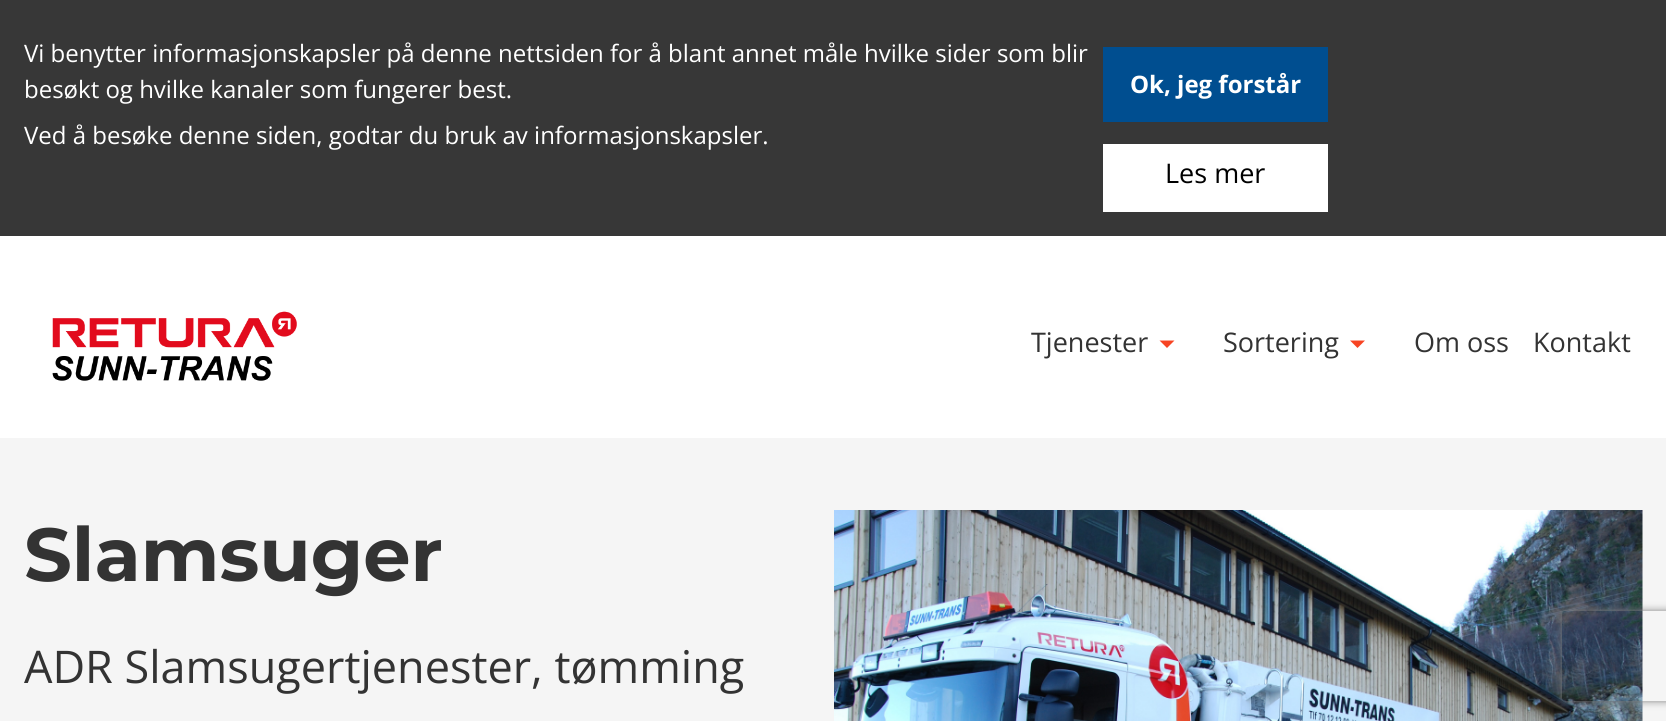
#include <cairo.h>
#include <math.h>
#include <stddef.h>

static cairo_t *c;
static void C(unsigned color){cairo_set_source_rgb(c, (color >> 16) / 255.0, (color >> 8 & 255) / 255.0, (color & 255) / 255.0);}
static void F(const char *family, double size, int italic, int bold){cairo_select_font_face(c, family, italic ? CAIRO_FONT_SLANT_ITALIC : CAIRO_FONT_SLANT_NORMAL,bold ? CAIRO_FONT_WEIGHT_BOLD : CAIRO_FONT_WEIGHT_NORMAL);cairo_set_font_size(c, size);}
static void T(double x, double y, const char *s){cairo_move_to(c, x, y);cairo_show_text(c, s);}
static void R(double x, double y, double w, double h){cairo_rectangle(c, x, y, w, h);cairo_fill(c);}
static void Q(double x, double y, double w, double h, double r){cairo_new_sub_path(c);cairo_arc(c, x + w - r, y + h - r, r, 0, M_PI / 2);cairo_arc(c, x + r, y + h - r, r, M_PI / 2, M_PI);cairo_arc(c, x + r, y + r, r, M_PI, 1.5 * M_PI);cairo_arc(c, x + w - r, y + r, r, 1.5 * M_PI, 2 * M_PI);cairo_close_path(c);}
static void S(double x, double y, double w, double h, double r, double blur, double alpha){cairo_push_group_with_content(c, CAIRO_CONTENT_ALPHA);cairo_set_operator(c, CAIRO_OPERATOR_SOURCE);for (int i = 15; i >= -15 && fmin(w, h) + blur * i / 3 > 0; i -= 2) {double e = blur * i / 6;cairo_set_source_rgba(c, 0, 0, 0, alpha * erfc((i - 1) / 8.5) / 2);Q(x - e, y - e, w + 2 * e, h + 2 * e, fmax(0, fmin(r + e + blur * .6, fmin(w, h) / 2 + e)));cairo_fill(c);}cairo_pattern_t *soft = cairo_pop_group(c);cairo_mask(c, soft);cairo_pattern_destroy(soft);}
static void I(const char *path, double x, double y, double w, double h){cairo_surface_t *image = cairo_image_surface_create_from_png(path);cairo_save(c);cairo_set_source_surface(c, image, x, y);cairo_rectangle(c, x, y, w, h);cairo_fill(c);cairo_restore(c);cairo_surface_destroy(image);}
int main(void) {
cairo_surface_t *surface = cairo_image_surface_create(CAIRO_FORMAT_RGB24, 1666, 721);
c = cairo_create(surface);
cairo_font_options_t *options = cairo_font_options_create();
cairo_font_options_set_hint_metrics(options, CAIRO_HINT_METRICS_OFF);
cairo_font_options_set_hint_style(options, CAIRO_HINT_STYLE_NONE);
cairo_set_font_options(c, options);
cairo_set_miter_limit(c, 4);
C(0xffffff);
cairo_paint(c);
C(0x373737);
R(0,0,1666,236);
F("Open Sans",24,0,0);
C(0xffffff);
T(24,62,"Vi benytter informasjonskapsler på denne nettsiden for å blant annet måle hvilke sider som blir");
T(24,98,"besøkt og hvilke kanaler som fungerer best.");
T(24,144,"Ved å besøke denne siden, godtar du bruk av informasjonskapsler.");
C(0x004e90);
R(1103,47,225,75);
F("Open Sans",24,0,1);
C(0xffffff);
T(1130,93,"Ok, jeg forstår");
R(1103,144,225,68);
F("Open Sans",27,0,0);
C(0x000000);
T(1165,183,"Les mer");
I("1.png",52,311,245,70);
C(0x333333);
T(1031,352,"Tjenester");
C(0xf74423);
cairo_new_path(c);
cairo_move_to(c,1159.5,340.5);
cairo_line_to(c,1174.5,340.5);
cairo_line_to(c,1167,348);
cairo_close_path(c);
cairo_fill(c);
C(0x333333);
T(1223,352,"Sortering");
C(0xf74423);
cairo_new_path(c);
cairo_move_to(c,1350,340.5);
cairo_line_to(c,1365,340.5);
cairo_line_to(c,1357.5,348);
cairo_close_path(c);
cairo_fill(c);
C(0x333333);
T(1414,352,"Om oss");
T(1533,352,"Kontakt");
C(0xf5f5f5);
R(0,438,1666,283);
F("Montserrat",75,0,1);
C(0x333333);
T(24,581,"Slamsuger");
F("Open Sans",45,0,0);
T(24,683,"ADR Slamsugertjenester, tømming");
I("2.png",834,510,809,211);
cairo_save(c);
cairo_set_fill_rule(c,CAIRO_FILL_RULE_EVEN_ODD);
cairo_new_path(c);
cairo_move_to(c,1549,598);
cairo_line_to(c,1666,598);
cairo_line_to(c,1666,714);
cairo_line_to(c,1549,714);
cairo_close_path(c);
cairo_move_to(c,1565,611);
cairo_line_to(c,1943,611);
cairo_curve_to(c,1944.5,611,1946,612.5,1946,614);
cairo_line_to(c,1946,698);
cairo_curve_to(c,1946,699.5,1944.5,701,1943,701);
cairo_line_to(c,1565,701);
cairo_curve_to(c,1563.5,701,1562,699.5,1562,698);
cairo_line_to(c,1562,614);
cairo_curve_to(c,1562,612.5,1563.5,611,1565,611);
cairo_close_path(c);
cairo_clip(c);
C(0x808080);
S(1562,611,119,90,3,4,1);
cairo_restore(c);
cairo_surface_write_to_png(surface, "o.png");
cairo_font_options_destroy(options);
cairo_destroy(c);
cairo_surface_destroy(surface);
return 0;
}
